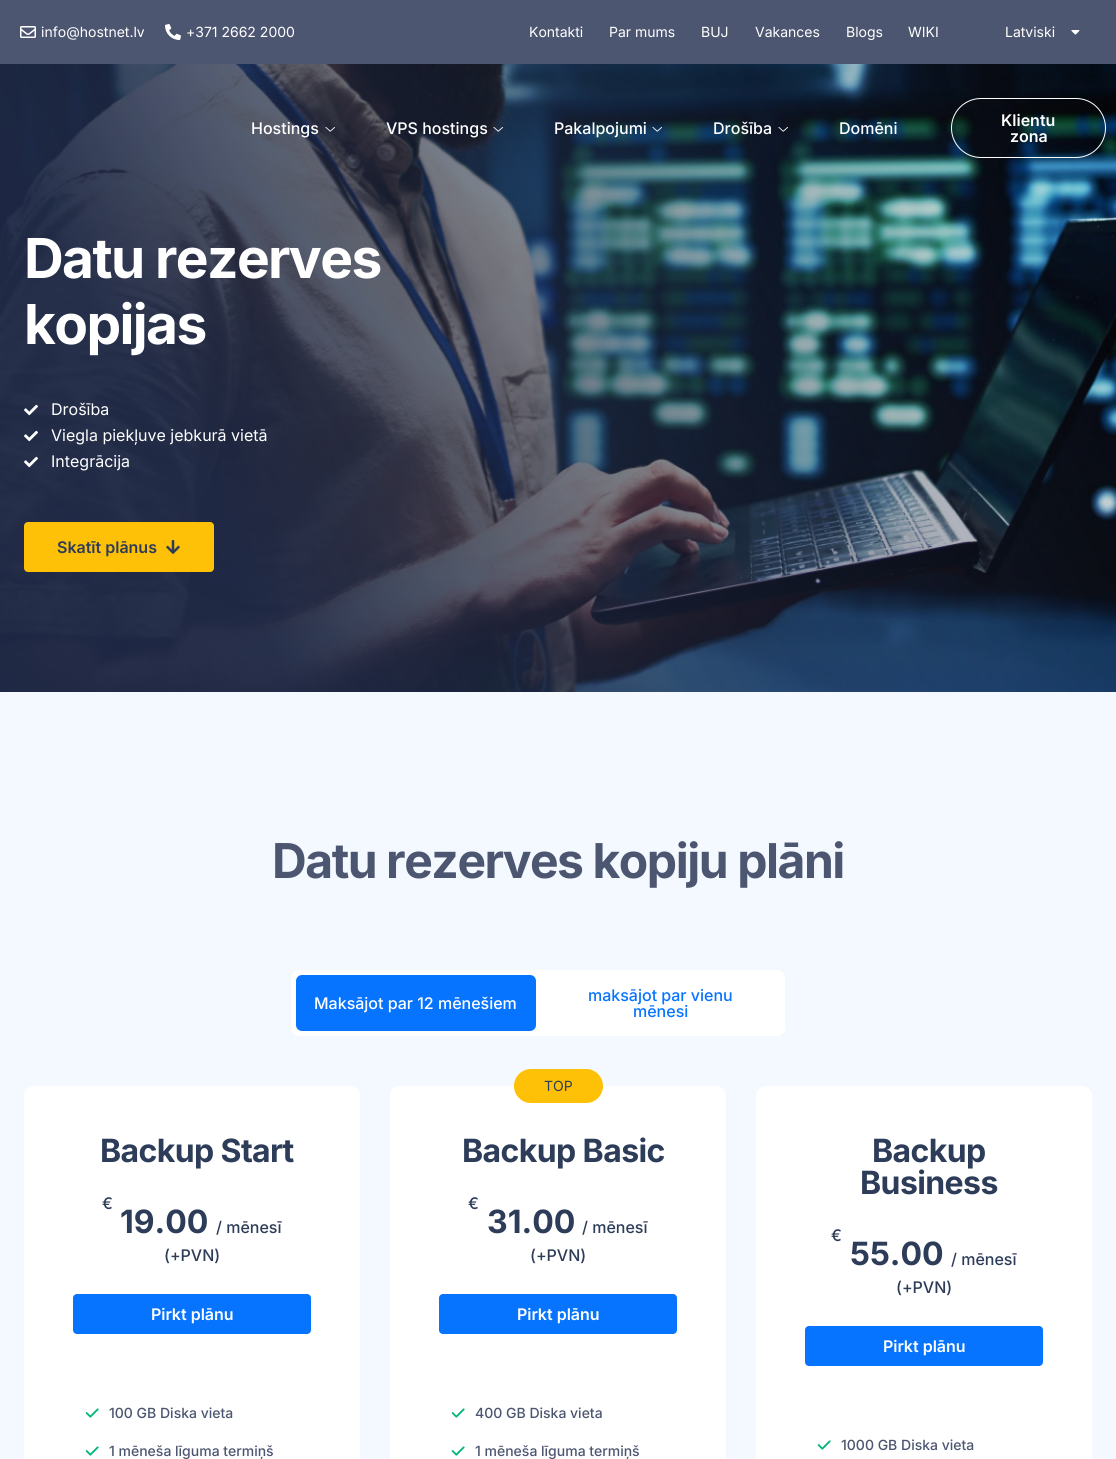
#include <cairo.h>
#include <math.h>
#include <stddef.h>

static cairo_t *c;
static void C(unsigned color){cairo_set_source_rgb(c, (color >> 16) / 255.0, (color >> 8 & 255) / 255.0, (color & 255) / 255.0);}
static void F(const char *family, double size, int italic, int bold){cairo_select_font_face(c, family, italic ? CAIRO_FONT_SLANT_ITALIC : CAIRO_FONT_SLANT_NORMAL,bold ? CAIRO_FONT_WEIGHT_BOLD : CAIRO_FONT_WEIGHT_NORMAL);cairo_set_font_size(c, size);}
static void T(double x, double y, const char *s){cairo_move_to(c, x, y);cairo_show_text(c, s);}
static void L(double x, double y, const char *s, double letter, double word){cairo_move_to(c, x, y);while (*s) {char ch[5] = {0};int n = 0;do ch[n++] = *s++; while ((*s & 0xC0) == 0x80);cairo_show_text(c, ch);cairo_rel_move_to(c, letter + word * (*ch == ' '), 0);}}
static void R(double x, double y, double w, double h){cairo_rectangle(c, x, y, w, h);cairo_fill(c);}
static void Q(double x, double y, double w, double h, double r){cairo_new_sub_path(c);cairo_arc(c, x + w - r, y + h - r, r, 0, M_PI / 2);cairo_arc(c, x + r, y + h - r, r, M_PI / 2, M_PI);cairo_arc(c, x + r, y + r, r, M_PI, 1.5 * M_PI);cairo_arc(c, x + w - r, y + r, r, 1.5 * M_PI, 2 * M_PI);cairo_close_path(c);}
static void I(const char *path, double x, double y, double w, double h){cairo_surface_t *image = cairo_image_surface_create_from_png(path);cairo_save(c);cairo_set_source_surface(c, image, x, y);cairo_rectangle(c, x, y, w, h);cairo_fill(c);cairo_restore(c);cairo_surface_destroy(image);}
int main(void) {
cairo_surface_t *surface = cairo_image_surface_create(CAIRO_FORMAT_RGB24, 1116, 1459);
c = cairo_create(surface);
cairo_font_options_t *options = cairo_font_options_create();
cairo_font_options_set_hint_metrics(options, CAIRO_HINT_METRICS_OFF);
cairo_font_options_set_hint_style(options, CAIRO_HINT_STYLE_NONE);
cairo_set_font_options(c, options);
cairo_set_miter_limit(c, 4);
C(0xffffff);
cairo_paint(c);
C(0x4c5671);
R(0,0,1116,64);
I("1.png",20,26,16,12);
F("Inter",14,0,0);
C(0xffffff);
T(41,37,"info@hostnet.lv");
I("2.png",165,24,16,16);
T(186,37,"+371 2662 2000");
T(529,37,"Kontakti");
T(609,37,"Par mums");
T(701,37,"BUJ");
T(755,37,"Vakances");
T(846,37,"Blogs");
T(908,37,"WIKI");
T(1005,37,"Latviski");
I("3.png",1071,30,9,5);
I("8.png",0,64,1116,628);
F("Inter Medium",16,0,0);
T(251,134,"Hostings");
I("4.png",325,127,10,5);
T(386,134,"VPS hostings");
I("5.png",493,127,10,5);
T(554,134,"Pakalpojumi");
I("6.png",652,127,10,5);
T(713,134,"Drošība");
I("7.png",778,127,10,5);
T(839,134,"Domēni");
Q(951.5,98.5,154,59,29.5);
cairo_set_line_width(c,1);
cairo_stroke(c);
F("Inter SemiBold",16,0,0);
T(1001,126,"Klientu");
T(1010,142,"zona");
F("Inter",55,0,1);
L(24,278,"Datu rezerves",-1.6,0);
L(24,344,"kopijas",-1.6,0);
I("9.png",24,404,14,12);
F("Inter",16,0,0);
T(51,415,"Drošība");
I("10.png",24,430,14,12);
T(51,441,"Viegla piekļuve jebkurā vietā");
I("11.png",24,456,14,12);
T(51,467,"Integrācija");
C(0xffc107);
Q(24.5,522.5,189,49,3.5);
cairo_fill_preserve(c);
cairo_stroke(c);
F("Inter SemiBold",16,0,0);
C(0x2d3c58);
T(57,553,"Skatīt plānus");
I("12.png",166,540,14,14);
C(0xf4f9ff);
R(0,692,1116,767);
F("Inter",48,0,1);
C(0x4c5671);
L(272,878,"Datu rezerves kopiju plāni",-1.45,0);
C(0xffffff);
Q(291,970,494,66,8);
cairo_fill(c);
C(0x0774ff);
Q(296,975,240,56,6);
cairo_fill(c);
F("Inter Medium",16,0,0);
C(0xffffff);
T(314,1009,"Maksājot par 12 mēnešiem");
C(0x0774ff);
T(588,1001,"maksājot par vienu");
T(633,1017,"mēnesi");
C(0xffffff);
Q(24,1086,336,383,10);
cairo_fill(c);
F("Inter",32,0,1);
C(0x2d3c58);
L(100,1162,"Backup Start",-.6,0);
F("Inter Medium",16,0,0);
T(102,1209,"€");
F("Inter",32,0,1);
T(120,1233,"19.00");
F("Inter Medium",16,0,0);
T(216,1233,"/ mēnesī");
T(164,1261,"(+PVN)");
C(0x0774ff);
Q(73,1294,238,40,4);
cairo_fill(c);
F("Inter SemiBold",16,0,0);
C(0xffffff);
T(151,1320,"Pirkt plānu");
I("13.png",85,1408,14,10);
F("Inter Medium",14,0,0);
C(0x4c5671);
T(109,1418,"100 GB Diska vieta");
I("13.png",85,1446,14,10);
T(109,1456,"1 mēneša līguma termiņš");
C(0xffffff);
Q(390,1086,336,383,10);
cairo_fill(c);
C(0xffc107);
Q(514,1069,89,34,17);
cairo_fill(c);
F("Inter",14,0,0);
C(0x2d3c58);
T(544,1091,"TOP");
F("Inter",32,0,1);
L(462,1162,"Backup Basic",-.6,0);
F("Inter Medium",16,0,0);
T(468,1209,"€");
F("Inter",32,0,1);
T(487,1233,"31.00");
F("Inter Medium",16,0,0);
T(582,1233,"/ mēnesī");
T(530,1261,"(+PVN)");
C(0x0774ff);
Q(439,1294,238,40,4);
cairo_fill(c);
F("Inter SemiBold",16,0,0);
C(0xffffff);
T(517,1320,"Pirkt plānu");
I("13.png",451,1408,14,10);
F("Inter Medium",14,0,0);
C(0x4c5671);
T(475,1418,"400 GB Diska vieta");
I("13.png",451,1446,14,10);
T(475,1456,"1 mēneša līguma termiņš");
C(0xffffff);
Q(756,1086,336,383,10);
cairo_fill(c);
F("Inter",32,0,1);
C(0x2d3c58);
L(872,1162,"Backup",-.6,0);
L(860,1194,"Business",-.6,0);
F("Inter Medium",16,0,0);
T(831,1241,"€");
F("Inter",32,0,1);
T(850,1265,"55.00");
F("Inter Medium",16,0,0);
T(951,1265,"/ mēnesī");
T(896,1293,"(+PVN)");
C(0x0774ff);
Q(805,1326,238,40,4);
cairo_fill(c);
F("Inter SemiBold",16,0,0);
C(0xffffff);
T(883,1352,"Pirkt plānu");
I("13.png",817,1440,14,10);
F("Inter Medium",14,0,0);
C(0x4c5671);
T(841,1450,"1000 GB Diska vieta");
cairo_surface_write_to_png(surface, "o.png");
cairo_font_options_destroy(options);
cairo_destroy(c);
cairo_surface_destroy(surface);
return 0;
}
